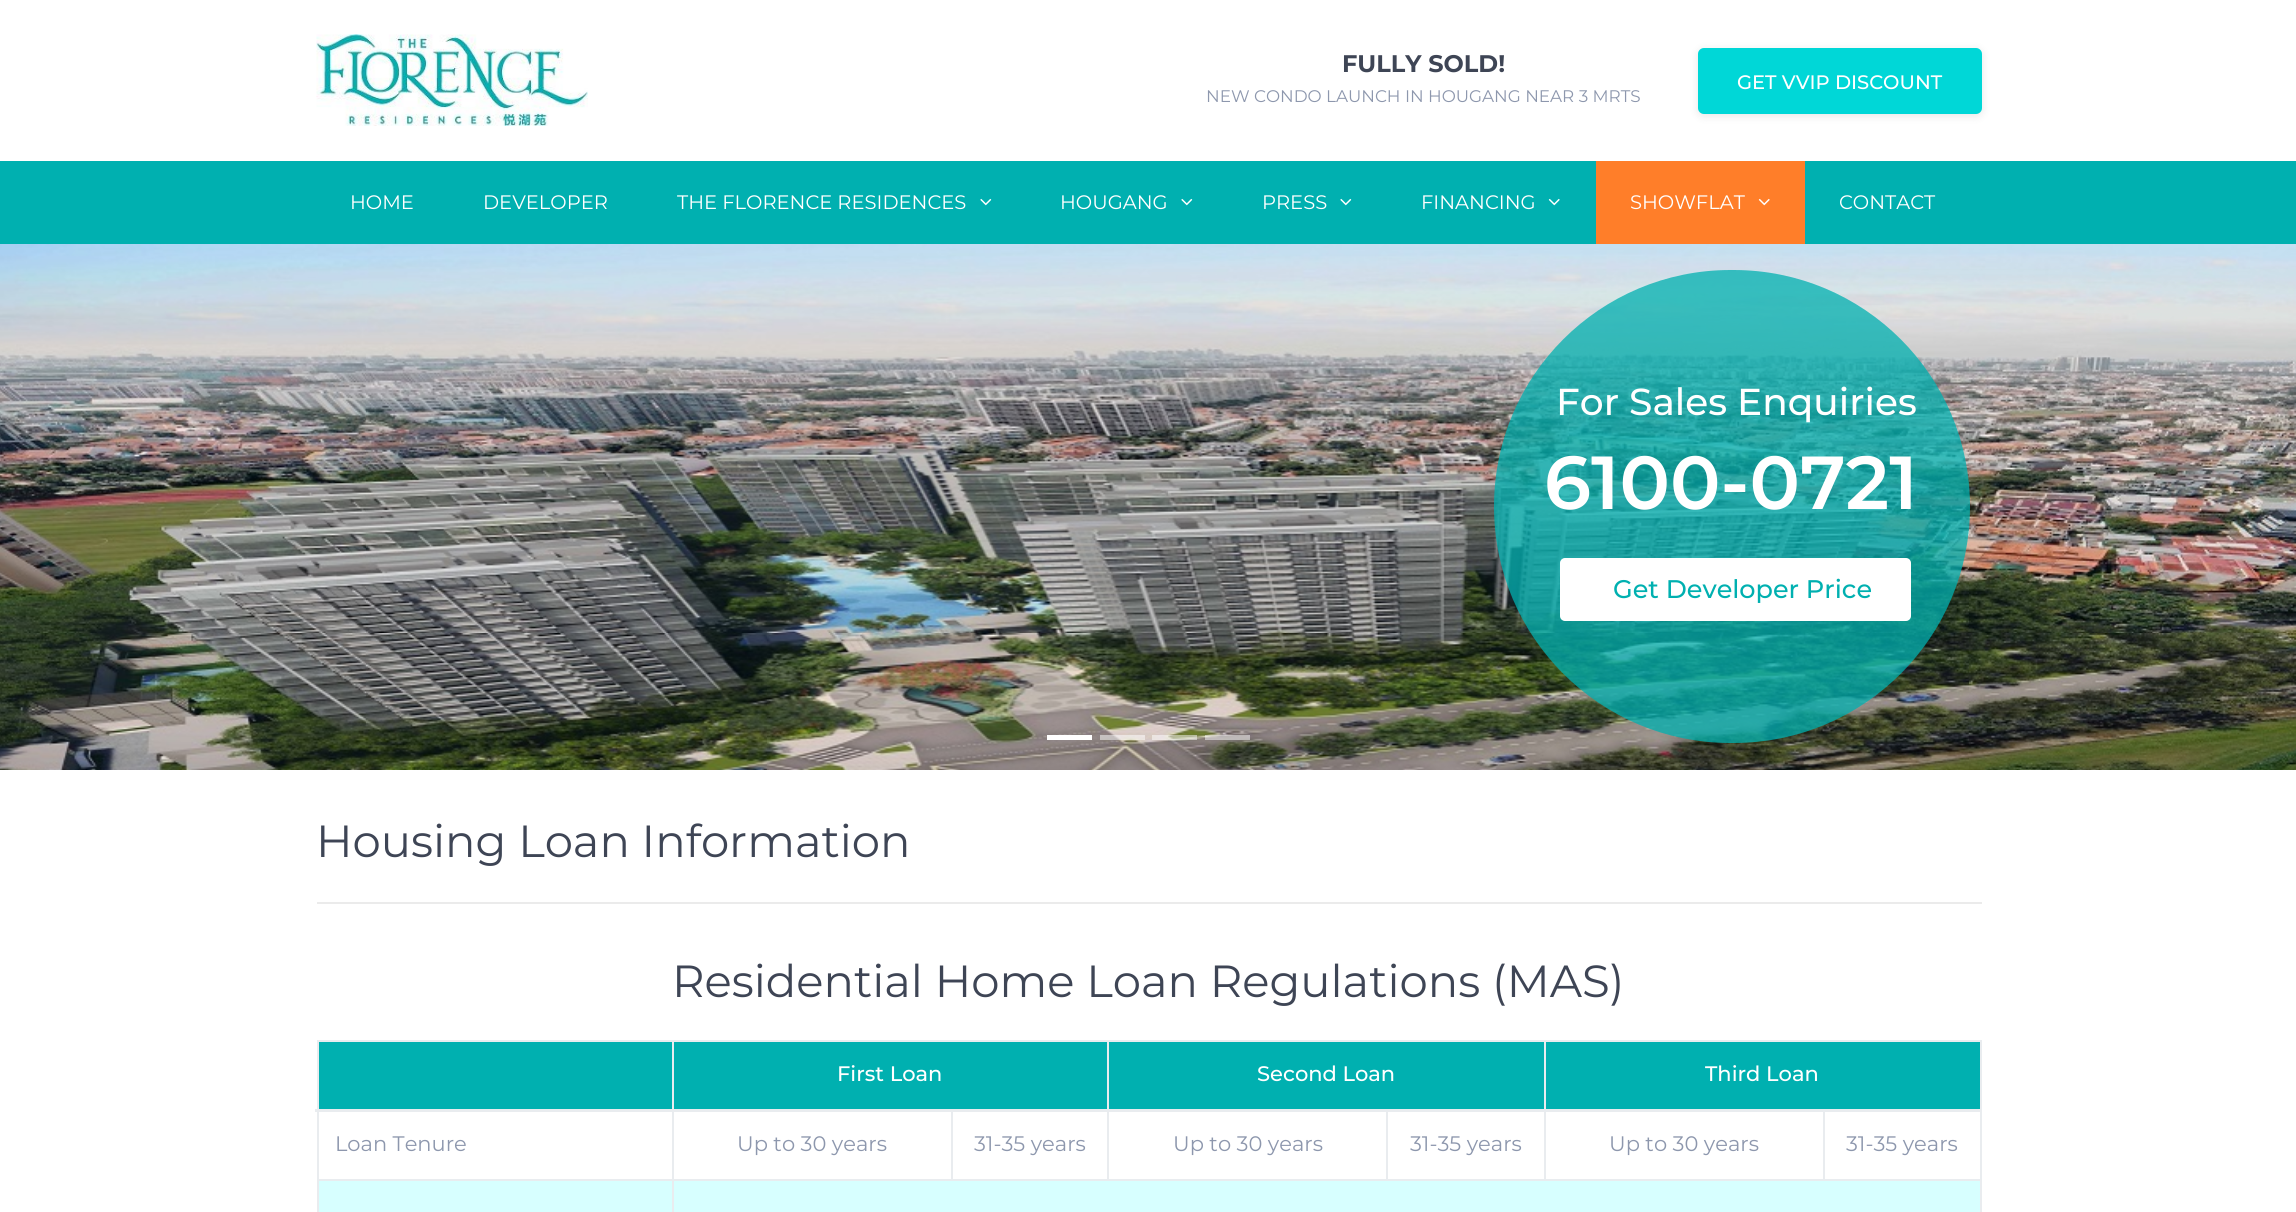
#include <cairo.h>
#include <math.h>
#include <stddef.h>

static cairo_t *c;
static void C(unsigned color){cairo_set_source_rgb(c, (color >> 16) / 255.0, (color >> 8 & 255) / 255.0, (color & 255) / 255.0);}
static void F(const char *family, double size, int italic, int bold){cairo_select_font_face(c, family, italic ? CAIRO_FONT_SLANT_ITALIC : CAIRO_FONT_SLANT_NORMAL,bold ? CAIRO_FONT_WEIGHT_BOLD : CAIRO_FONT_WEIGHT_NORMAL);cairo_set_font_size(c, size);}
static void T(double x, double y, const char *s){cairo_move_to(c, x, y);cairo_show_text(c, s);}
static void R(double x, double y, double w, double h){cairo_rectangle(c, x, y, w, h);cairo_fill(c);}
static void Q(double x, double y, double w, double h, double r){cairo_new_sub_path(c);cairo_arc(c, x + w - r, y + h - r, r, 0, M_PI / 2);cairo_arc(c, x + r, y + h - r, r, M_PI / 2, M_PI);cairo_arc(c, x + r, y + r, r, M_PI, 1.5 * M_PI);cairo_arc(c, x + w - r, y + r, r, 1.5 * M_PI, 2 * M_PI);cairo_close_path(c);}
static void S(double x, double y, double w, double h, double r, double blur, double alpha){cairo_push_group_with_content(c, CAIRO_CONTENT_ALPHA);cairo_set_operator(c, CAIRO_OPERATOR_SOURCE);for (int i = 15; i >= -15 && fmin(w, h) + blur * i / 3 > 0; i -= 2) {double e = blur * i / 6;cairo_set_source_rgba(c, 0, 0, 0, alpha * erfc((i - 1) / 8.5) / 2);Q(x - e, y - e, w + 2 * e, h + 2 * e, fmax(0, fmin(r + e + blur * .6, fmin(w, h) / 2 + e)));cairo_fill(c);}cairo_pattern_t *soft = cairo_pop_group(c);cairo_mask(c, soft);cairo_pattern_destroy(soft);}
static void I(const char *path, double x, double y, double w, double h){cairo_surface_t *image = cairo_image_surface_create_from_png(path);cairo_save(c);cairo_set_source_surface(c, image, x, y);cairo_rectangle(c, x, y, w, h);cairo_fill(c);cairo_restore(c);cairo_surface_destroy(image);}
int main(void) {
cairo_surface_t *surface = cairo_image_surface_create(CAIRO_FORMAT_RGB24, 2296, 1212);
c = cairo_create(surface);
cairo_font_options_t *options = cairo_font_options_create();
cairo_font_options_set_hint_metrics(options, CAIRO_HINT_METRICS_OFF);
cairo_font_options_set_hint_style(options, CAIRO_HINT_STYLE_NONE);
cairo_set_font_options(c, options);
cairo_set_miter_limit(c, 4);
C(0xffffff);
cairo_paint(c);
I("1.png",316,34,272,92);
F("Montserrat",24,0,1);
C(0x3e4555);
T(1342,72,"FULLY SOLD!");
F("Montserrat",16.8,0,0);
C(0x8d97ad);
T(1206,102,"NEW CONDO LAUNCH IN HOUGANG NEAR 3 MRTS");
C(0x000000);
S(1698,50,284,66,6,4.5,.1);
C(0x00d7d7);
Q(1699,49,282,64,5);
cairo_fill_preserve(c);
cairo_stroke(c);
F("Montserrat Medium",19.5,0,0);
C(0xffffff);
T(1737,89,"GET VVIP DISCOUNT");
C(0x00b0b0);
R(0,161,2296,83);
F("Montserrat",19.5,0,0);
C(0xffffff);
T(350,209,"HOME");
T(483,209,"DEVELOPER");
T(677,209,"THE FLORENCE RESIDENCES");
I("2.png",980,198,12,8);
T(1060,209,"HOUGANG");
I("2.png",1181,198,12,8);
T(1262,209,"PRESS");
I("2.png",1340,198,12,8);
T(1421,209,"FINANCING");
I("3.png",1548,198,12,8);
C(0xff7e29);
R(1596,161,209,83);
C(0xffffff);
T(1630,209,"SHOWFLAT");
I("4.png",1758,198,12,8);
T(1839,209,"CONTACT");
I("5.png",0,244,2296,526);
cairo_set_source_rgba(c,0,0.69,0.69,0.75);
Q(1494,270,476,473,236.5);
cairo_fill(c);
F("Montserrat Medium",37.5,0,0);
C(0xffffff);
T(1556,415,"For Sales Enquiries");
F("Montserrat SemiBold",75,0,0);
T(1544,509,"6100-0721");
Q(1561,559,349,61,4);
cairo_fill_preserve(c);
cairo_stroke(c);
F("Montserrat Medium",25.5,0,0);
C(0x00b0b0);
T(1613,598,"Get Developer Price");
C(0xffffff);
R(1047,735,45,5);
cairo_set_source_rgba(c,1,1,1,0.5);
R(1100,735,45,5);
R(1152,735,45,5);
R(1205,735,45,5);
F("Montserrat",45,0,0);
C(0x3e4555);
T(316,857,"Housing Loan Information");
C(0xebebeb);
R(317,902,1665,2);
C(0x3e4555);
T(672,997,"Residential Home Loan Regulations (MAS)");
C(0xe9ecef);
R(317,1040,1665,2);
R(1980,1040,2,172);
R(317,1040,2,172);
C(0x00b0b0);
R(319,1042,1661,67);
F("Montserrat Medium",21,0,0);
C(0xffffff);
T(837,1081,"First Loan");
T(1257,1081,"Second Loan");
C(0xe9ecef);
R(672,1179,1310,2);
C(0xd7ffff);
R(319,1181,1661,31);
C(0xe9ecef);
R(672,1179,2,33);
R(317,1179,357,2);
R(672,1040,2,141);
R(951,1109,2,72);
R(1107,1040,2,141);
R(1386,1109,2,72);
R(1544,1040,2,141);
R(1823,1109,2,72);
R(315,1109,1667,3);
C(0xffffff);
T(1705,1081,"Third Loan");
F("Montserrat",21,0,0);
C(0x8d97ad);
T(335,1151,"Loan Tenure");
T(737,1151,"Up to 30 years");
T(974,1151,"31-35 years");
T(1173,1151,"Up to 30 years");
T(1410,1151,"31-35 years");
T(1609,1151,"Up to 30 years");
T(1846,1151,"31-35 years");
cairo_surface_write_to_png(surface, "o.png");
cairo_font_options_destroy(options);
cairo_destroy(c);
cairo_surface_destroy(surface);
return 0;
}
